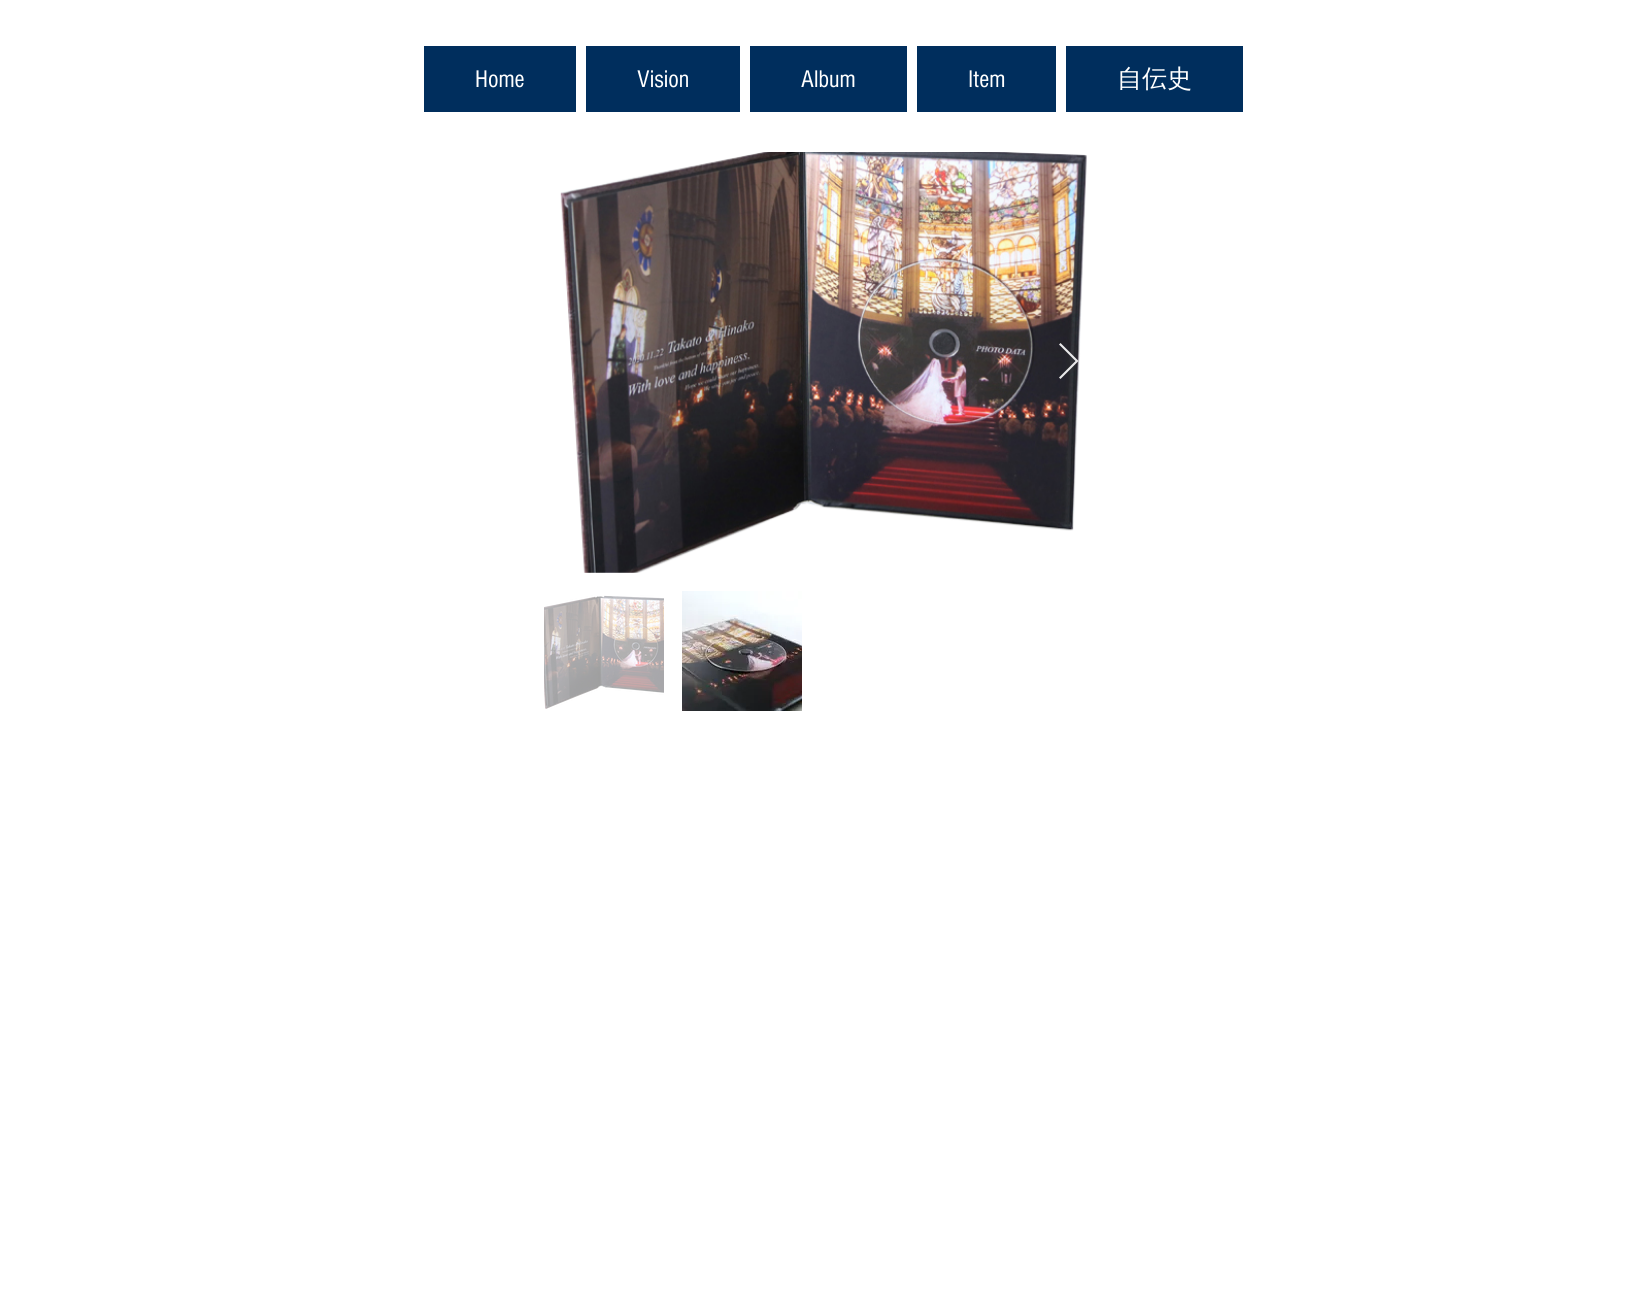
#include <cairo.h>
#include <math.h>
#include <stddef.h>

static cairo_t *c;
static void C(unsigned color){cairo_set_source_rgb(c, (color >> 16) / 255.0, (color >> 8 & 255) / 255.0, (color & 255) / 255.0);}
static void F(const char *family, double size, int italic, int bold){cairo_select_font_face(c, family, italic ? CAIRO_FONT_SLANT_ITALIC : CAIRO_FONT_SLANT_NORMAL,bold ? CAIRO_FONT_WEIGHT_BOLD : CAIRO_FONT_WEIGHT_NORMAL);cairo_set_font_size(c, size);}
static void T(double x, double y, const char *s){cairo_move_to(c, x, y);cairo_show_text(c, s);}
static void R(double x, double y, double w, double h){cairo_rectangle(c, x, y, w, h);cairo_fill(c);}
static void I(const char *path, double x, double y, double w, double h){cairo_surface_t *image = cairo_image_surface_create_from_png(path);cairo_save(c);cairo_set_source_surface(c, image, x, y);cairo_rectangle(c, x, y, w, h);cairo_fill(c);cairo_restore(c);cairo_surface_destroy(image);}
int main(void) {
cairo_surface_t *surface = cairo_image_surface_create(CAIRO_FORMAT_RGB24, 1638, 1292);
c = cairo_create(surface);
cairo_font_options_t *options = cairo_font_options_create();
cairo_font_options_set_hint_metrics(options, CAIRO_HINT_METRICS_OFF);
cairo_font_options_set_hint_style(options, CAIRO_HINT_STYLE_NONE);
cairo_set_font_options(c, options);
cairo_set_miter_limit(c, 4);
C(0xffffff);
cairo_paint(c);
C(0x002e5d);
R(424,46,152,66);
F("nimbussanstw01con",25,0,0);
C(0xffffff);
T(475,87,"Home");
C(0x002e5d);
R(586,46,154,66);
C(0xffffff);
T(637,87,"Vision");
C(0x002e5d);
R(750,46,157,66);
C(0xffffff);
T(801,87,"Album");
C(0x002e5d);
R(917,46,139,66);
C(0xffffff);
T(968,87,"Item");
C(0x002e5d);
R(1066,46,177,66);
F("WenQuanYi Zen Hei Medium",25,0,0);
C(0xffffff);
T(1117,87,"自伝史");
I("1.png",560,152,527,421);
cairo_set_source_rgba(c,1,1,1,0.9);
cairo_new_path(c);
cairo_move_to(c,1059,344.5);
cairo_line_to(c,1060.5,343);
cairo_line_to(c,1078.5,361);
cairo_line_to(c,1060.5,379);
cairo_line_to(c,1059,377.5);
cairo_line_to(c,1075.5,361);
cairo_close_path(c);
cairo_fill(c);
I("2.png",544,595,120,114);
I("3.png",682,591,120,120);
cairo_surface_write_to_png(surface, "o.png");
cairo_font_options_destroy(options);
cairo_destroy(c);
cairo_surface_destroy(surface);
return 0;
}
